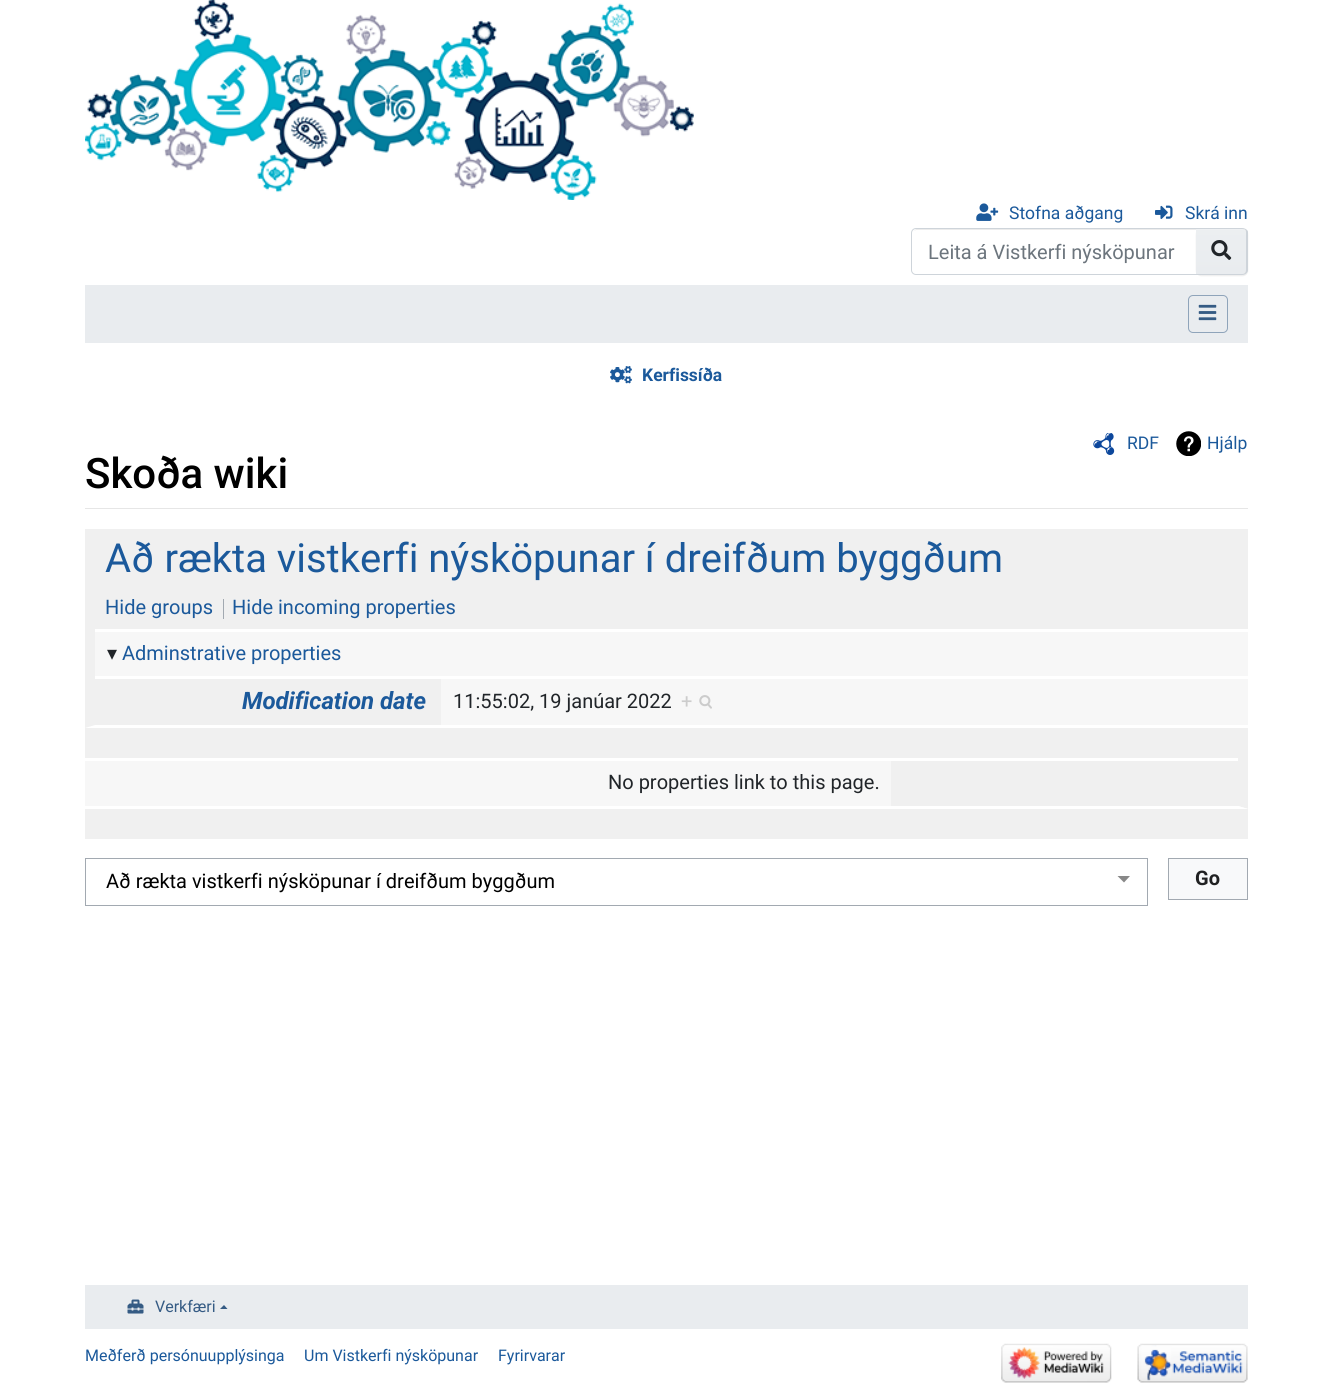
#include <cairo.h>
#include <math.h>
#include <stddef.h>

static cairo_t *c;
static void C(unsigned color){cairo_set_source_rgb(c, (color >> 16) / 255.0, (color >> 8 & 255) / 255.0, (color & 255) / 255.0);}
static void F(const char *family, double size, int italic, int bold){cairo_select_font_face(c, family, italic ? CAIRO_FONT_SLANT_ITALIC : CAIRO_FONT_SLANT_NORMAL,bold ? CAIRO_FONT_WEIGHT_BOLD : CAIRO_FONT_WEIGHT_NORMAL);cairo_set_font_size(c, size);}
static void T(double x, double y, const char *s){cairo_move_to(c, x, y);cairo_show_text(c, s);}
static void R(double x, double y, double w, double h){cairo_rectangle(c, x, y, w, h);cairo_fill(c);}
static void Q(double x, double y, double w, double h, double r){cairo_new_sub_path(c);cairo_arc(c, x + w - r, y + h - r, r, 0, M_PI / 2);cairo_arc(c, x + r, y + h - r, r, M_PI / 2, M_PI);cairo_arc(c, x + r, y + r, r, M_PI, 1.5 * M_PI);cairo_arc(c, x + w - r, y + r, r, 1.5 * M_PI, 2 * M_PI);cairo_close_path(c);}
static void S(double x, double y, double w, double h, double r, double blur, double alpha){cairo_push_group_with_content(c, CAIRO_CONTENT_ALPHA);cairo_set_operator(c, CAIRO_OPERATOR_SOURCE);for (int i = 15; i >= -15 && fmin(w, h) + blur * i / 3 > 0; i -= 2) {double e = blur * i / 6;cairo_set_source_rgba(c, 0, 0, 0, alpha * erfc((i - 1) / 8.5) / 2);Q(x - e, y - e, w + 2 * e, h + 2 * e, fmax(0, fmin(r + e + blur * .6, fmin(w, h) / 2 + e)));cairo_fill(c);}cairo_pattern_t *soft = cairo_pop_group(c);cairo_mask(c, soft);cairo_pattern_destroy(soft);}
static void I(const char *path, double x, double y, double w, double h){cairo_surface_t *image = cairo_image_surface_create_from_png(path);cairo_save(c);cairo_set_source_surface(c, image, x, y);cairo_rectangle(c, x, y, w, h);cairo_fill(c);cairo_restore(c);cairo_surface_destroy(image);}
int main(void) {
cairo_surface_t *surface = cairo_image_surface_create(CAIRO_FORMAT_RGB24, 1332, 1397);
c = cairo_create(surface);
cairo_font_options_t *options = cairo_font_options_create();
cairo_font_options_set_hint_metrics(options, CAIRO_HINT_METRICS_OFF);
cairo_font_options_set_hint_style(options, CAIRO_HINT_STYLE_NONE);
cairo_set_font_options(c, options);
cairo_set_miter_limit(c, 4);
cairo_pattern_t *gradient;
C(0xffffff);
cairo_paint(c);
I("1.png",85,0,609,200);
I("2.png",976,203,23,18);
F("Roboto",17.5,0,0);
C(0x1b599b);
T(1009,219,"Stofna aðgang");
I("3.png",1155,205,18,14);
T(1185,219,"Skrá inn");
C(0xececec);
cairo_new_path(c);
cairo_move_to(c,916,230);
cairo_line_to(c,1196,230);
cairo_line_to(c,1196,229);
cairo_line_to(c,916,229);
cairo_line_to(c,914,231);
cairo_close_path(c);
cairo_fill(c);
cairo_new_path(c);
cairo_move_to(c,916,228.5);
cairo_line_to(c,1197.5,228.5);
cairo_line_to(c,1197.5,274.5);
cairo_line_to(c,916,274.5);
cairo_curve_to(c,913.5,274.5,911.5,272.5,911.5,270);
cairo_line_to(c,911.5,233);
cairo_curve_to(c,911.5,230.5,913.5,228.5,916,228.5);
cairo_close_path(c);
C(0xced4da);
cairo_set_line_width(c,1);
cairo_stroke(c);
F("Roboto",20,0,0);
C(0x6c757d);
T(928,259,"Leita á Vistkerfi nýsköpunar");
C(0x000000);
S(1196,229,52,47,5,.5,.07);
gradient = cairo_pattern_create_linear(1221,229,1221,274);
cairo_pattern_add_color_stop_rgba(gradient,0,0.925,0.937,0.945,1);
cairo_pattern_add_color_stop_rgba(gradient,1,0.914,0.925,0.937,1);
cairo_set_source(c,gradient);
cairo_pattern_destroy(gradient);
cairo_new_path(c);
cairo_move_to(c,1196,229);
cairo_line_to(c,1242,229);
cairo_curve_to(c,1244,229,1246,231,1246,233);
cairo_line_to(c,1246,270);
cairo_curve_to(c,1246,272,1244,274,1242,274);
cairo_line_to(c,1196,274);
cairo_close_path(c);
cairo_fill(c);
C(0xeff1f3);
cairo_new_path(c);
cairo_move_to(c,1196,230);
cairo_line_to(c,1242,230);
cairo_curve_to(c,1245,230,1246,232,1246,234);
cairo_line_to(c,1246,233);
cairo_curve_to(c,1246,231,1244,229,1242,229);
cairo_line_to(c,1196,229);
cairo_close_path(c);
cairo_fill(c);
C(0xced4da);
cairo_set_fill_rule(c,CAIRO_FILL_RULE_EVEN_ODD);
cairo_new_path(c);
cairo_move_to(c,1196,228);
cairo_line_to(c,1242,228);
cairo_curve_to(c,1245,228,1248,230,1248,232);
cairo_line_to(c,1248,270);
cairo_curve_to(c,1248,273,1245,275,1242,275);
cairo_line_to(c,1196,275);
cairo_close_path(c);
cairo_move_to(c,1196,229);
cairo_line_to(c,1242,229);
cairo_curve_to(c,1245,229,1246,230,1246,232);
cairo_line_to(c,1246,270);
cairo_curve_to(c,1246,272,1245,274,1242,274);
cairo_line_to(c,1196,274);
cairo_close_path(c);
cairo_fill(c);
I("4.png",1211,240,21,20);
C(0xe9ecef);
R(85,285,1163,58);
Q(1188.5,295.5,39,37,4.5);
C(0x8fa4ba);
cairo_stroke(c);
I("5.png",1198,304,19,17);
I("6.png",610,366,22,18);
F("Roboto",17.5,0,1);
C(0x1b599b);
T(642,381,"Kerfissíða");
I("7.png",1093,433,22,22);
F("Roboto",17.5,0,0);
T(1127,449,"RDF");
I("8.png",1176,431,25,25);
T(1207,449,"Hjálp");
C(0xe6e6e6);
R(85,508,1163,1);
F("Roboto Medium",42,0,0);
C(0x000000);
T(85,488,"Skoða wiki");
C(0xf0f0f0);
R(85,529,1163,60);
F("Roboto",40,0,0);
C(0x1b599b);
T(105,572,"Að rækta vistkerfi nýsköpunar í dreifðum byggðum");
C(0xf0f0f0);
R(85,589,1163,40);
F("Roboto",20,0,0);
C(0x1b599b);
T(105,614,"Hide groups");
C(0xa2a9b1);
R(223,599,1,20);
C(0x1b599b);
T(232,614,"Hide incoming properties");
C(0xf0f0f0);
R(85,629,10,47);
C(0xf7f7f7);
R(95,632,1153,44);
F("DejaVu Sans",20,0,0);
C(0x212529);
T(107,660,"▾");
F("Roboto",20,0,0);
C(0x1b599b);
T(122,660,"Adminstrative properties");
C(0xf0f0f0);
cairo_set_fill_rule(c,CAIRO_FILL_RULE_WINDING);
cairo_new_path(c);
cairo_move_to(c,85,728);
cairo_line_to(c,85,676);
cairo_line_to(c,95,676);
cairo_line_to(c,95,725);
cairo_close_path(c);
cairo_fill(c);
R(95,679,346,46);
F("Roboto",24,1,1);
C(0x1b599b);
T(242,709,"Modification date");
C(0xf7f7f7);
R(441,679,807,46);
F("Roboto",20,0,0);
C(0x212529);
T(453,708,"11:55:02, 19 janúar 2022");
C(0xcccccc);
T(681,708,"+");
I("9.png",699,695,13,14);
C(0xf0f0f0);
R(85,728,1163,30);
cairo_new_path(c);
cairo_move_to(c,1248,758);
cairo_line_to(c,1248,809);
cairo_line_to(c,1238,806);
cairo_line_to(c,1238,758);
cairo_close_path(c);
cairo_fill(c);
C(0xffffff);
cairo_new_path(c);
cairo_move_to(c,1248,809);
cairo_line_to(c,85,809);
cairo_line_to(c,85,806);
cairo_line_to(c,1238,806);
cairo_close_path(c);
cairo_fill(c);
C(0xf7f7f7);
R(85,761,806,45);
C(0x212529);
T(608,789,"No properties link to this page.");
C(0xf0f0f0);
R(891,761,347,45);
R(85,809,1163,30);
C(0x888888);
cairo_new_path(c);
cairo_move_to(c,1117.5,876);
cairo_line_to(c,1124,882.5);
cairo_line_to(c,1130,876);
cairo_close_path(c);
cairo_fill(c);
cairo_rectangle(c,85.5,858.5,1062,47);
C(0xa2a9b1);
cairo_stroke(c);
C(0x000000);
T(106,888,"Að rækta vistkerfi nýsköpunar í dreifðum byggðum");
C(0xf8f9fa);
cairo_rectangle(c,1168.5,858.5,79,41);
cairo_fill_preserve(c);
C(0xa2a9b1);
cairo_stroke(c);
F("Roboto",20,0,1);
C(0x202122);
T(1195,885,"Go");
C(0xe9ecef);
R(85,1285,1163,44);
I("10.png",127,1299,17,15);
F("Roboto",16,0,0);
C(0x355b84);
T(155,1312,"Verkfæri");
cairo_new_path(c);
cairo_move_to(c,227.5,1309);
cairo_line_to(c,220,1309);
cairo_line_to(c,224,1305);
cairo_close_path(c);
cairo_fill(c);
C(0x1b599b);
T(85,1361,"Meðferð persónuupplýsinga");
T(304,1361,"Um Vistkerfi nýsköpunar");
T(498,1361,"Fyrirvarar");
I("11.png",1001,1343,111,40);
I("12.png",1137,1343,111,40);
cairo_surface_write_to_png(surface, "o.png");
cairo_font_options_destroy(options);
cairo_destroy(c);
cairo_surface_destroy(surface);
return 0;
}
